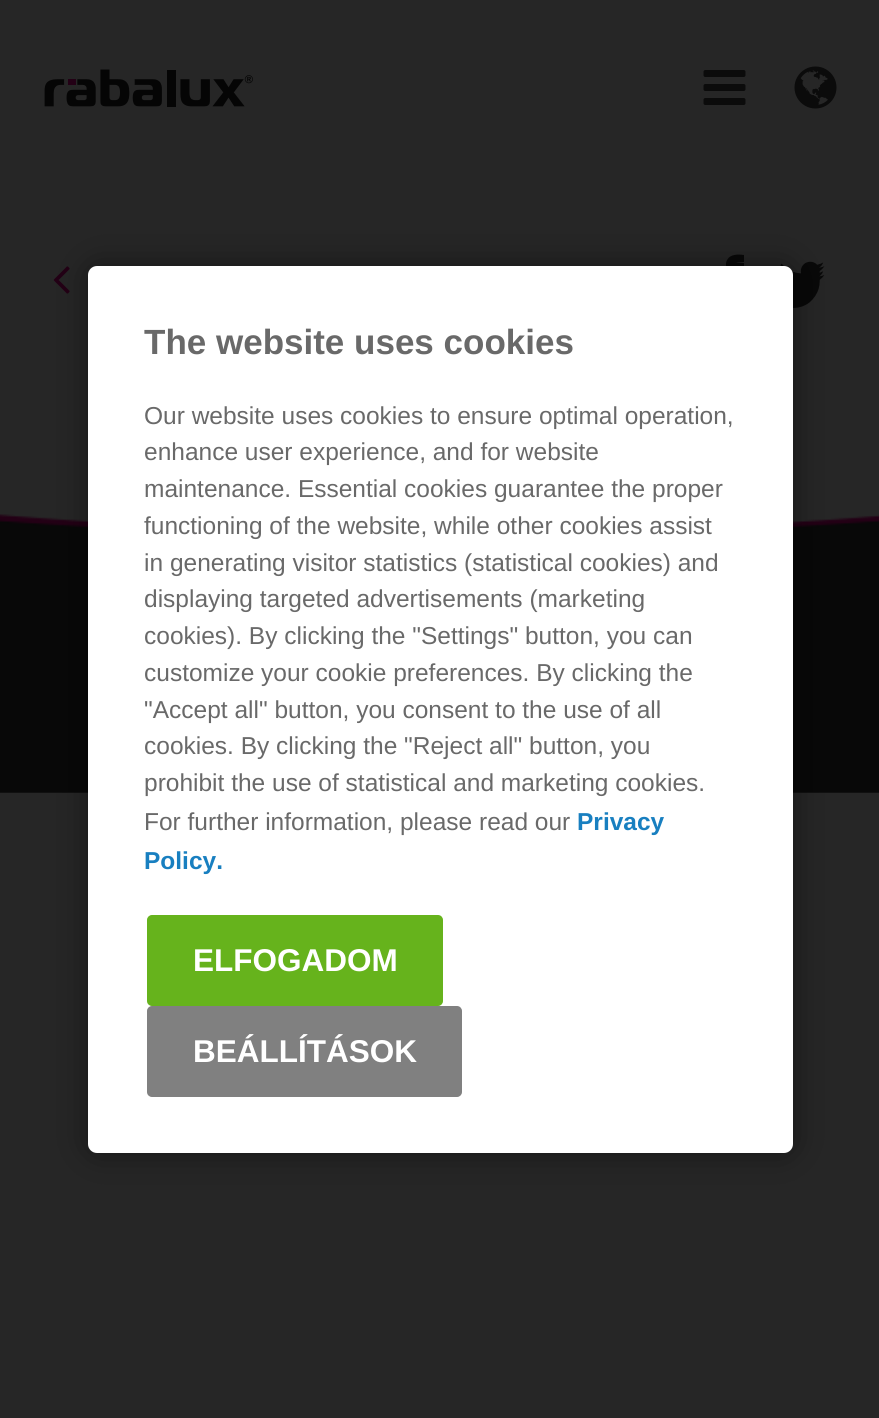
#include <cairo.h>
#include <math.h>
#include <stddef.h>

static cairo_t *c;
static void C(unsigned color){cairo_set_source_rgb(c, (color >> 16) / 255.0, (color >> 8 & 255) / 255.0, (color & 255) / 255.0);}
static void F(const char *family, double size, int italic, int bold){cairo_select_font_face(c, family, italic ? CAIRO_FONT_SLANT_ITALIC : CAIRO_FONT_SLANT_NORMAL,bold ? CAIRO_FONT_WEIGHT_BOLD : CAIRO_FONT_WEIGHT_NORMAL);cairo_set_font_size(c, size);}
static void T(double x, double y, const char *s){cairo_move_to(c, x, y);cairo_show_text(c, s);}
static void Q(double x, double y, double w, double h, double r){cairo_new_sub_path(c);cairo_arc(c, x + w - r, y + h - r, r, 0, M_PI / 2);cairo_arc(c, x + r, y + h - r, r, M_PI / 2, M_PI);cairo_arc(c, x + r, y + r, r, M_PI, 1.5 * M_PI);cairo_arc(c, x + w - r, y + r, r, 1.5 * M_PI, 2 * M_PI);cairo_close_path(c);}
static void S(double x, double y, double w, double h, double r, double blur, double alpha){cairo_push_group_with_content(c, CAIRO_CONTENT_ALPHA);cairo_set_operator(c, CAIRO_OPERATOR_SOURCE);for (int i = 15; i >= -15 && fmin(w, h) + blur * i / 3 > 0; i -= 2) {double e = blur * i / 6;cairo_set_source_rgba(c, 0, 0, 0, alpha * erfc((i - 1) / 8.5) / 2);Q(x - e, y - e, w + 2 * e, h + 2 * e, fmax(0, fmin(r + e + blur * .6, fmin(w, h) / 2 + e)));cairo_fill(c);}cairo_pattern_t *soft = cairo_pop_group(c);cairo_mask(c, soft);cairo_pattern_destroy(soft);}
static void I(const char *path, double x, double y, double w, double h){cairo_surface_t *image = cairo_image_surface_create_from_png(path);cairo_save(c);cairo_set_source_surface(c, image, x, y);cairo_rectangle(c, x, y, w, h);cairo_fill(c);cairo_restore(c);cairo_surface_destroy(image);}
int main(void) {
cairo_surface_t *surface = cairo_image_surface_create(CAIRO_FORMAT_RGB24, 879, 1418);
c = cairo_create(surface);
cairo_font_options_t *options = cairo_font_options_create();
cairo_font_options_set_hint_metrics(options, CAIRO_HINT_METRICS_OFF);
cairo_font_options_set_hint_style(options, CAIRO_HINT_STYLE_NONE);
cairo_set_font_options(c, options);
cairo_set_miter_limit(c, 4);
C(0x262626);
cairo_paint(c);
I("1.png",44,69,209,38);
I("2.png",703,70,43,35);
I("3.png",794,66,43,43);
I("4.png",53,266,17,28);
C(0x080808);
cairo_new_path(c);
cairo_move_to(c,744,263);
cairo_line_to(c,744,271);
cairo_curve_to(c,734,271,735,271,735,281);
cairo_line_to(c,744,281);
cairo_line_to(c,742,290);
cairo_line_to(c,735,290);
cairo_line_to(c,735,312);
cairo_line_to(c,726,312);
cairo_line_to(c,726,290);
cairo_line_to(c,719,290);
cairo_line_to(c,719,281);
cairo_line_to(c,726,281);
cairo_line_to(c,726,272);
cairo_curve_to(c,728,263,737,262,744,263);
cairo_close_path(c);
cairo_fill(c);
cairo_new_path(c);
cairo_move_to(c,744,255);
cairo_line_to(c,744,262);
cairo_curve_to(c,734,262,735,263,735,272);
cairo_line_to(c,744,272);
cairo_line_to(c,742,281);
cairo_line_to(c,735,281);
cairo_line_to(c,735,303);
cairo_line_to(c,726,303);
cairo_line_to(c,726,281);
cairo_line_to(c,719,281);
cairo_line_to(c,719,272);
cairo_line_to(c,726,272);
cairo_line_to(c,726,263);
cairo_curve_to(c,728,254,737,254,744,255);
cairo_close_path(c);
cairo_fill(c);
I("6.png",793,271,32,37);
I("5.png",780,261,45,39);
I("7.png",0,514,879,279);
C(0x000000);
S(88,266,705,887,9,17.5,.4);
C(0xffffff);
Q(88,266,705,887,9);
cairo_fill(c);
F("Liberation Sans",35,0,1);
C(0x696969);
T(144,354,"The website uses cookies");
F("Liberation Sans",24.5,0,0);
T(144,424,"Our website uses cookies to ensure optimal operation,");
T(144,460,"enhance user experience, and for website");
T(144,497,"maintenance. Essential cookies guarantee the proper");
T(144,534,"functioning of the website, while other cookies assist");
T(144,571,"in generating visitor statistics (statistical cookies) and");
T(144,607,"displaying targeted advertisements (marketing");
T(144,644,"cookies). By clicking the \"Settings\" button, you can");
T(144,681,"customize your cookie preferences. By clicking the");
T(144,718,"\"Accept all\" button, you consent to the use of all");
T(144,754,"cookies. By clicking the \"Reject all\" button, you");
T(144,791,"prohibit the use of statistical and marketing cookies.");
T(144,830,"For further information, please read our");
F("Liberation Sans",24.5,0,1);
C(0x187fc0);
T(577,830,"Privacy");
T(144,869,"Policy.");
C(0x66b31c);
Q(148,916,294,89,4);
cairo_fill_preserve(c);
cairo_stroke(c);
F("Liberation Sans",31.5,0,1);
C(0xffffff);
T(193,971,"ELFOGADOM");
C(0x808080);
Q(148,1007,313,89,4);
cairo_fill_preserve(c);
cairo_stroke(c);
C(0xffffff);
T(193,1062,"BEÁLLÍTÁSOK");
cairo_surface_write_to_png(surface, "o.png");
cairo_font_options_destroy(options);
cairo_destroy(c);
cairo_surface_destroy(surface);
return 0;
}
